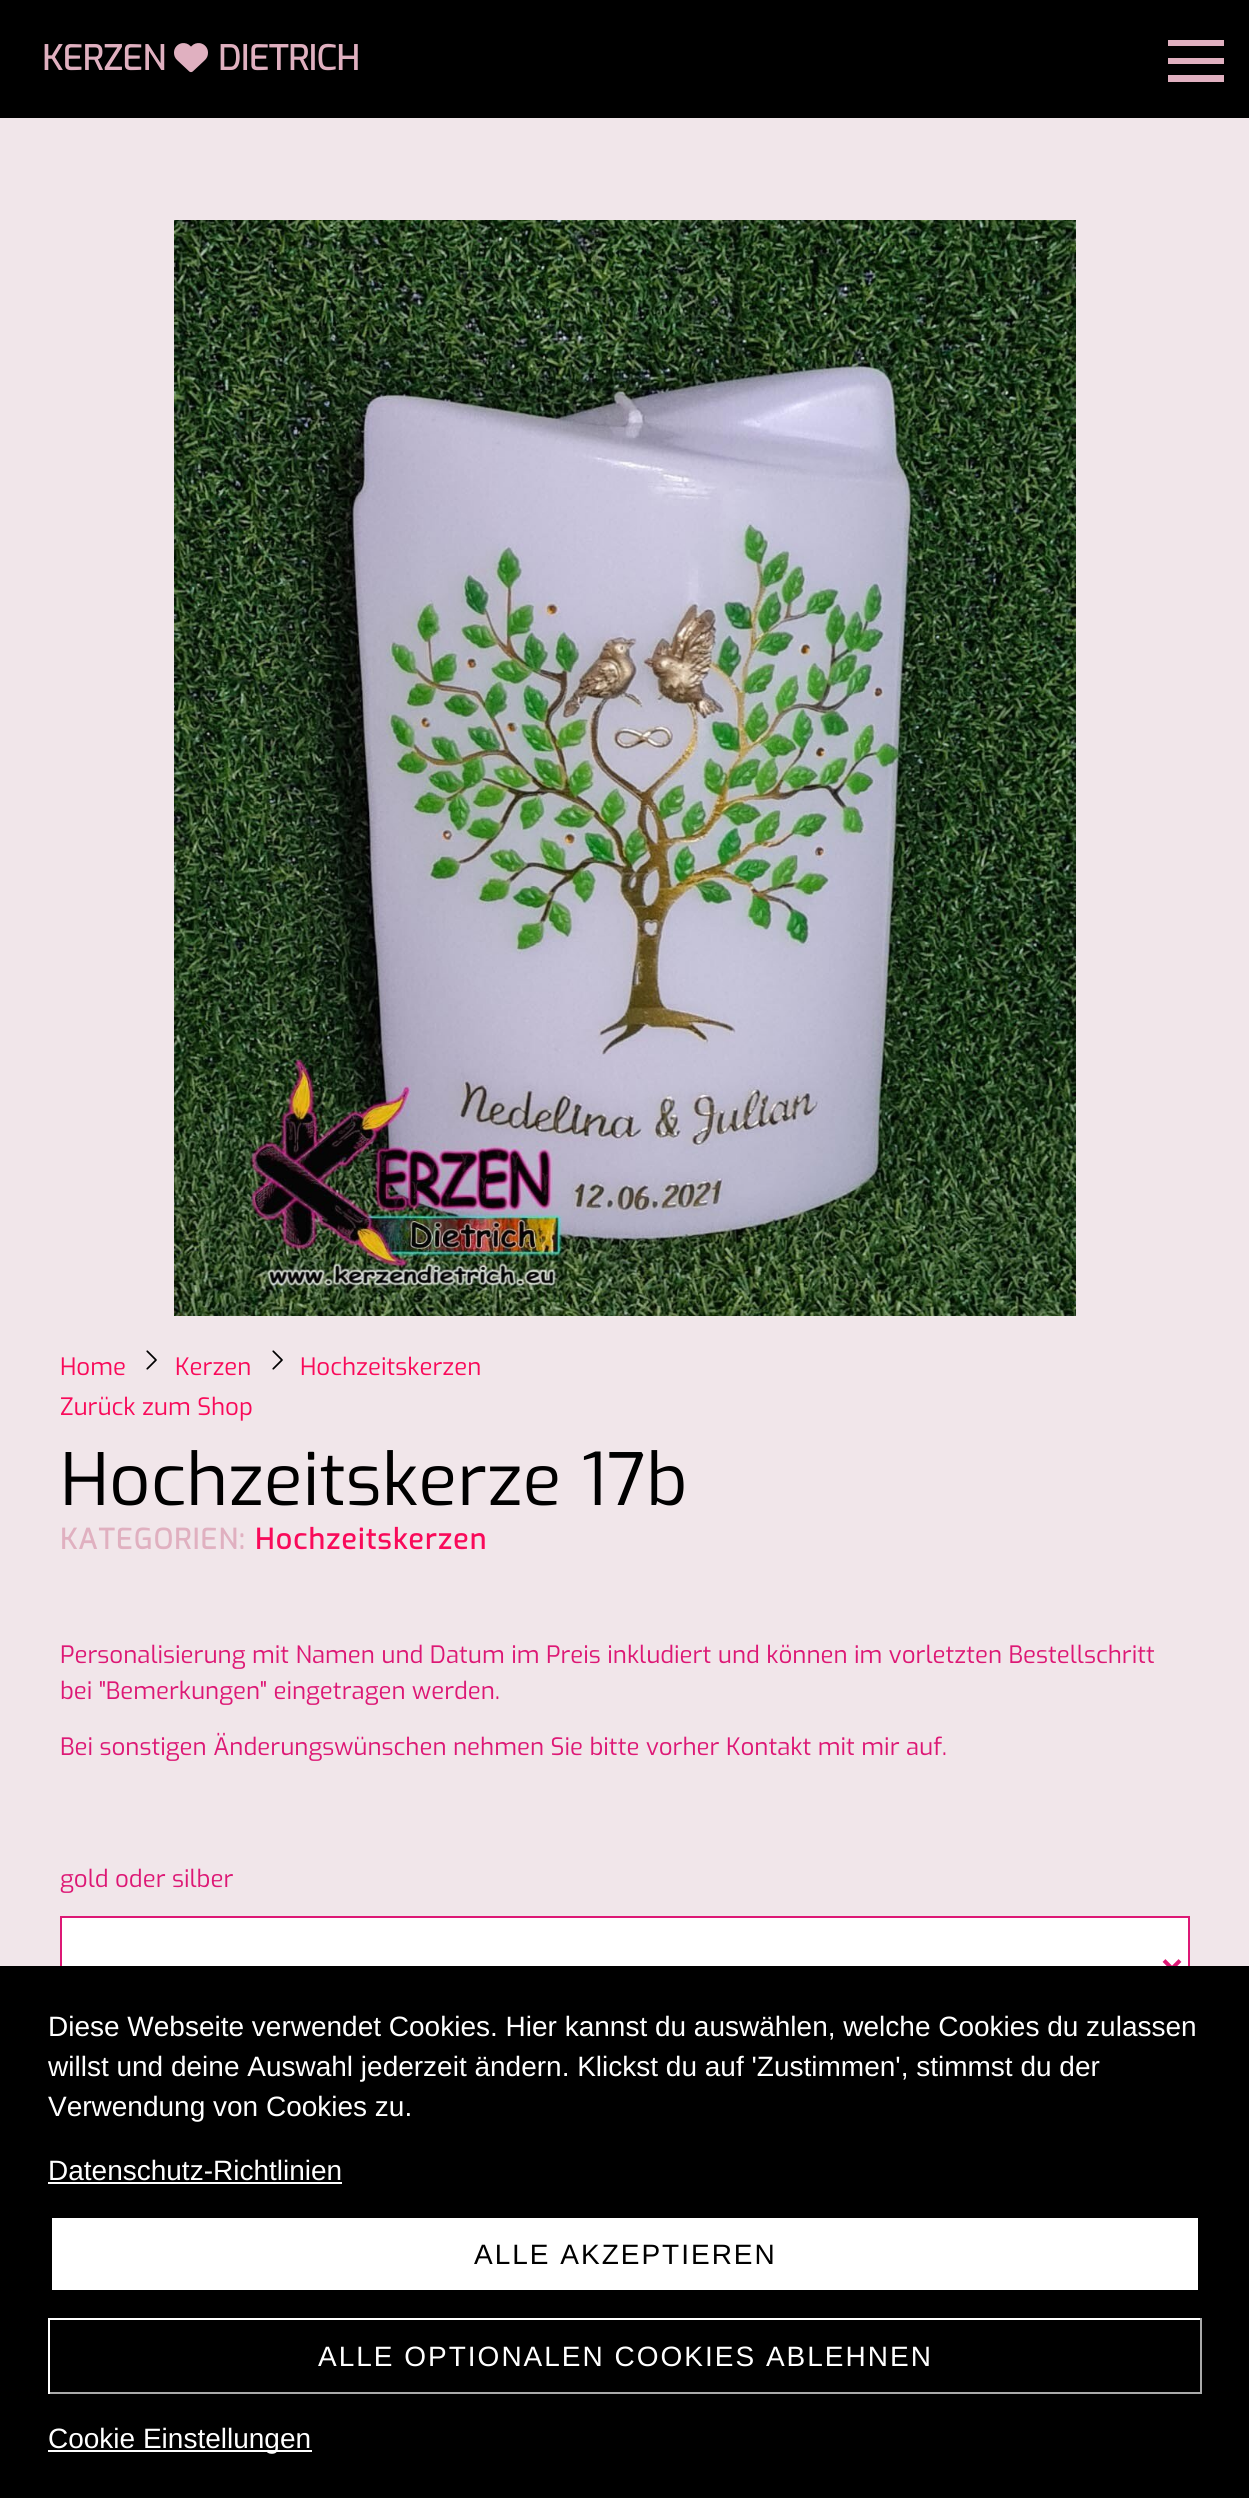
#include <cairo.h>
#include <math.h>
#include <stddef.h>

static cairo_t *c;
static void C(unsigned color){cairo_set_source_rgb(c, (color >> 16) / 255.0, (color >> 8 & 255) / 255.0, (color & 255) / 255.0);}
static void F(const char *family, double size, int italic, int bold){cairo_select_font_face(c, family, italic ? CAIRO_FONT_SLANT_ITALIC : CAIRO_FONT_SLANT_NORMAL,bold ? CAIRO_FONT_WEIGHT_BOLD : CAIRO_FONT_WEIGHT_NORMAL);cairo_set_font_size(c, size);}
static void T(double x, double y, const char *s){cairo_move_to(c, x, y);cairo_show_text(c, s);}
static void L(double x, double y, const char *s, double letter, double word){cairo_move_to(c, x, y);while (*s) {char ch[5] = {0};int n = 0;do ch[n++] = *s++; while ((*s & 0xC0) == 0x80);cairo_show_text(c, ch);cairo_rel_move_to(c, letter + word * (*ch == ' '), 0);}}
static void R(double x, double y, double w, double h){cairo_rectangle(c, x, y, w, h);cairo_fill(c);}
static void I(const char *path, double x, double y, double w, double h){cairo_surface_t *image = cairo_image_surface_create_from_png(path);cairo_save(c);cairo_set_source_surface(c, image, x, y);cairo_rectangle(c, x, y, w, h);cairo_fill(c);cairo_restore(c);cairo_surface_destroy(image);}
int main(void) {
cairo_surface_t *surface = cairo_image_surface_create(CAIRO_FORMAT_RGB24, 1249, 2498);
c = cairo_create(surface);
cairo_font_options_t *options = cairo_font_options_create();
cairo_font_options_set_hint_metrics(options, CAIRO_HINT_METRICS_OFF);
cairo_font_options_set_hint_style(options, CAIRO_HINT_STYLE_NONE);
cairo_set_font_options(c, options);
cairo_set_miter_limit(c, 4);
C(0xf1e6ea);
cairo_paint(c);
C(0x000000);
R(0,0,1249,118);
F("Exo",34,0,1);
C(0xe0b0c0);
T(42,70,"KERZEN");
I("1.png",174,43,34,30);
T(218,70,"DIETRICH");
cairo_new_path(c);
cairo_move_to(c,1224,46);
cairo_line_to(c,1224,40);
cairo_line_to(c,1168,40);
cairo_line_to(c,1168,46);
cairo_close_path(c);
cairo_move_to(c,1224,64);
cairo_line_to(c,1224,58);
cairo_line_to(c,1168,58);
cairo_line_to(c,1168,64);
cairo_close_path(c);
cairo_move_to(c,1224,82);
cairo_line_to(c,1224,75);
cairo_line_to(c,1168,75);
cairo_line_to(c,1168,82);
cairo_close_path(c);
cairo_fill(c);
I("2.png",174,220,902,1096);
F("Exo",24,0,0);
C(0xf90a5a);
T(60,1375,"Home");
I("3.png",146,1350,11,20);
T(175,1375,"Kerzen");
I("3.png",272,1350,11,20);
T(300,1375,"Hochzeitskerzen");
T(60,1415,"Zurück zum Shop");
F("Exo",72,0,0);
C(0x000000);
T(60,1505,"Hochzeitskerze 17b");
F("Exo",28,0,1);
C(0xe0b0c0);
L(60,1549,"KATEGORIEN:",1.4,0);
C(0xf90a5a);
L(255,1549,"Hochzeitskerzen",1.4,0);
F("Exo",24,0,0);
C(0xdd1875);
T(60,1663,"Personalisierung mit Namen und Datum im Preis inkludiert und können im vorletzten Bestellschritt");
T(60,1699,"bei \"Bemerkungen\" eingetragen werden.");
T(60,1755,"Bei sonstigen Änderungswünschen nehmen Sie bitte vorher Kontakt mit mir auf.");
T(60,1887,"gold oder silber");
C(0xffffff);
R(62,1918,1126,48);
cairo_rectangle(c,61,1917,1128,94);
C(0xdd1875);
cairo_stroke(c);
cairo_new_path(c);
cairo_move_to(c,1164,1960.5);
cairo_line_to(c,1172,1968.5);
cairo_line_to(c,1180,1960.5);
cairo_set_line_width(c,4);
cairo_stroke(c);
C(0x000000);
R(0,1966,1249,532);
F("Liberation Sans",28,0,0);
C(0xffffff);
T(48,2036,"Diese Webseite verwendet Cookies. Hier kannst du auswählen, welche Cookies du zulassen");
T(48,2076,"willst und deine Auswahl jederzeit ändern. Klickst du auf 'Zustimmen', stimmst du der");
T(48,2116,"Verwendung von Cookies zu.");
T(48,2180,"Datenschutz-Richtlinien");
R(48,2182,294,2);
R(52,2218,1146,72);
C(0x000000);
L(474,2264,"ALLE AKZEPTIEREN",2,0);
C(0xffffff);
R(48,2318,1154,2);
C(0xaaaaaa);
R(1200,2318,2,76);
R(48,2392,1154,2);
C(0xffffff);
R(48,2318,2,76);
L(318,2366,"ALLE OPTIONALEN COOKIES ABLEHNEN",2,0);
R(48,2450,264,2);
T(48,2448,"Cookie Einstellungen");
cairo_surface_write_to_png(surface, "o.png");
cairo_font_options_destroy(options);
cairo_destroy(c);
cairo_surface_destroy(surface);
return 0;
}
